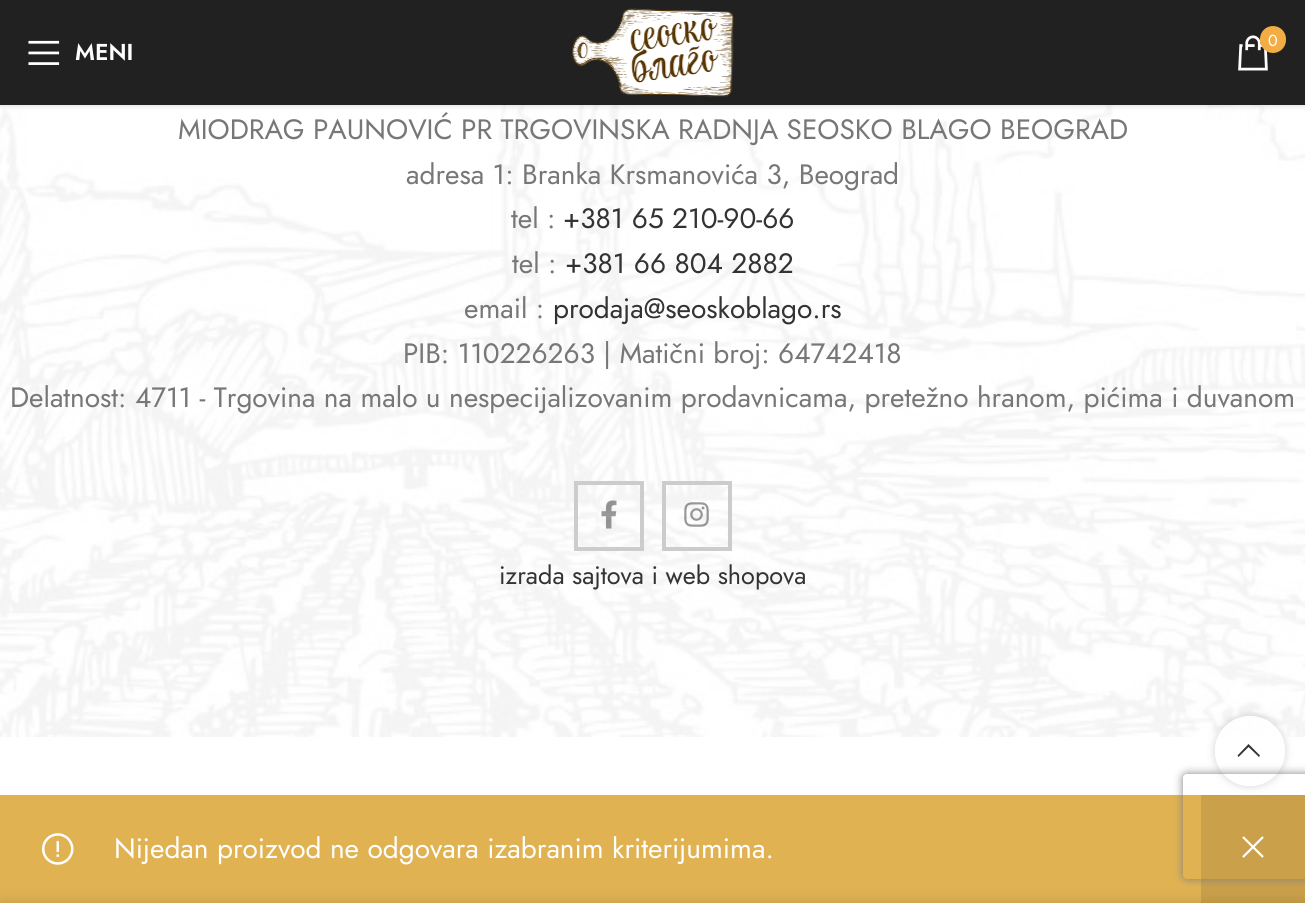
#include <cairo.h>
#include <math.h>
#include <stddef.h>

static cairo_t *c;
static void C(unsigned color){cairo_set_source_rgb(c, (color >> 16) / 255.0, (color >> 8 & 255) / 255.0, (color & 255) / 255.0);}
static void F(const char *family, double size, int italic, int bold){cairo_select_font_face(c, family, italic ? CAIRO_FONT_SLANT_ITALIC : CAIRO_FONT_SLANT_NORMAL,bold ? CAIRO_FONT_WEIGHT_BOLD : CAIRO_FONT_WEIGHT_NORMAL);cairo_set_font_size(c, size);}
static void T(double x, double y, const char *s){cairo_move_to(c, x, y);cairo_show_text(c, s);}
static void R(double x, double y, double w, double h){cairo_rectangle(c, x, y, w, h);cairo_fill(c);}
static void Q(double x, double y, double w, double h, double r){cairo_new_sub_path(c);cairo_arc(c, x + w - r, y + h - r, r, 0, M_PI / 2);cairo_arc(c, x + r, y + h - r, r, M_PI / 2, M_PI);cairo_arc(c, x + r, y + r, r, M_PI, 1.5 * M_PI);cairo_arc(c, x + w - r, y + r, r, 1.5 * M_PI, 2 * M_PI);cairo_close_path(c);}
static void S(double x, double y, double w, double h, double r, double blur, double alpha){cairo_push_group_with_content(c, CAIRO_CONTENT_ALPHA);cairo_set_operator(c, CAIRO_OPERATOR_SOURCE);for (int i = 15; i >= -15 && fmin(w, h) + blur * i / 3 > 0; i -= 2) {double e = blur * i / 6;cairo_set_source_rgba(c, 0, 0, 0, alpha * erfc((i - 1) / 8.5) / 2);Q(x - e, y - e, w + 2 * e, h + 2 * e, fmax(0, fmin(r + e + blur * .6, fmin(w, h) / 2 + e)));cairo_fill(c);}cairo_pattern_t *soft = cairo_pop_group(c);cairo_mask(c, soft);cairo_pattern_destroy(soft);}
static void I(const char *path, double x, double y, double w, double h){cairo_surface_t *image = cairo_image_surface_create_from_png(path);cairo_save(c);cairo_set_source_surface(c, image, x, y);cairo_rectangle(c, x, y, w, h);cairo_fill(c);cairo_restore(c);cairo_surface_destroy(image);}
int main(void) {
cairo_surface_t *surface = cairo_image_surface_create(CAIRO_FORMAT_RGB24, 1305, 903);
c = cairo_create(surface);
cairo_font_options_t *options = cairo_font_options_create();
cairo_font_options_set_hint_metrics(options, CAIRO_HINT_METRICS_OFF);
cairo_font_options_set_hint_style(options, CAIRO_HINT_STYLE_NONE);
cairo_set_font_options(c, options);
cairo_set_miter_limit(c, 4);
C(0xffffff);
cairo_paint(c);
I("4.png",0,105,1305,632);
C(0x000000);
S(0,2,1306,105,0,2.5,.1);
C(0x212121);
R(0,0,1305,105);
I("1.png",572,8,162,89);
I("2.png",1238,35,30,36);
C(0xf2ad44);
Q(1260,26,26,27,13);
cairo_fill(c);
F("Jost",16,0,0);
C(0xffffff);
T(1268,46,"0");
I("3.png",28,40,32,25);
F("Jost SemiBold",23,0,0);
T(75,60,"MENI");
F("Jost",28,0,0);
C(0x777777);
T(178,139,"MIODRAG PAUNOVIĆ PR TRGOVINSKA RADNJA SEOSKO BLAGO BEOGRAD");
T(406,184,"adresa 1: Branka Krsmanovića 3, Beograd");
T(511,228,"tel :");
C(0x333333);
T(563,228,"+381 65 210-90-66");
C(0x777777);
T(512,273,"tel :");
C(0x333333);
T(565,273,"+381 66 804 2882");
C(0x777777);
T(464,318,"email :");
C(0x333333);
T(553,318,"prodaja@seoskoblago.rs");
C(0x777777);
T(403,363,"PIB: 110226263 | Matični broj: 64742418");
T(10,407,"Delatnost: 4711 - Trgovina na malo u nespecijalizovanim prodavnicama, pretežno hranom, pićima i duvanom");
cairo_rectangle(c,576,483,66,66);
C(0xcccccc);
cairo_set_line_width(c,4);
cairo_stroke(c);
I("5.png",601,500,16,29);
cairo_rectangle(c,664,483,66,66);
cairo_stroke(c);
I("6.png",684,502,25,25);
F("Jost",25.25,0,0);
C(0x333333);
T(499,584,"izrada sajtova i web shopova");
cairo_save(c);
cairo_set_fill_rule(c,CAIRO_FILL_RULE_EVEN_ODD);
cairo_new_path(c);
cairo_move_to(c,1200,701);
cairo_line_to(c,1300,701);
cairo_line_to(c,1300,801);
cairo_line_to(c,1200,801);
cairo_close_path(c);
cairo_move_to(c,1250,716);
cairo_curve_to(c,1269.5,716,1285,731.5,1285,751);
cairo_curve_to(c,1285,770.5,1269.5,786,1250,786);
cairo_curve_to(c,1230.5,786,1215,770.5,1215,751);
cairo_curve_to(c,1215,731.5,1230.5,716,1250,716);
cairo_close_path(c);
cairo_clip(c);
C(0x000000);
S(1215,716,70,70,35,4.5,.17);
cairo_restore(c);
C(0xe0b252);
R(0,795,1201,108);
I("7.png",42,833,32,32);
F("Jost",28,0,0);
C(0xffffff);
T(114,858,"Nijedan proizvod ne odgovara izabranim kriterijumima.");
C(0xcaa04a);
R(1201,795,104,108);
I("8.png",1242,836,22,22);
cairo_set_source_rgba(c,1,1,1,0.9);
cairo_arc(c,1250,751,35,0,2 * M_PI);
cairo_fill(c);
C(0x333333);
cairo_new_path(c);
cairo_move_to(c,1259,757);
cairo_line_to(c,1260,755.5);
cairo_line_to(c,1248.5,744);
cairo_line_to(c,1237.5,755.5);
cairo_line_to(c,1238.5,757);
cairo_line_to(c,1248.5,747);
cairo_close_path(c);
cairo_fill(c);
cairo_save(c);
cairo_set_fill_rule(c,CAIRO_FILL_RULE_EVEN_ODD);
cairo_new_path(c);
cairo_move_to(c,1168,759);
cairo_line_to(c,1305,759);
cairo_line_to(c,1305,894);
cairo_line_to(c,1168,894);
cairo_close_path(c);
cairo_move_to(c,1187,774);
cairo_line_to(c,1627,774);
cairo_curve_to(c,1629,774,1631,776,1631,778);
cairo_line_to(c,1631,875);
cairo_curve_to(c,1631,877,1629,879,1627,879);
cairo_line_to(c,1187,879);
cairo_curve_to(c,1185,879,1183,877,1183,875);
cairo_line_to(c,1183,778);
cairo_curve_to(c,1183,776,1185,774,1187,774);
cairo_close_path(c);
cairo_clip(c);
C(0x808080);
S(1183,774,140,105,4,4.5,1);
cairo_restore(c);
C(0x000000);
S(0,903,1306,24,0,8,.14);
cairo_surface_write_to_png(surface, "o.png");
cairo_font_options_destroy(options);
cairo_destroy(c);
cairo_surface_destroy(surface);
return 0;
}
